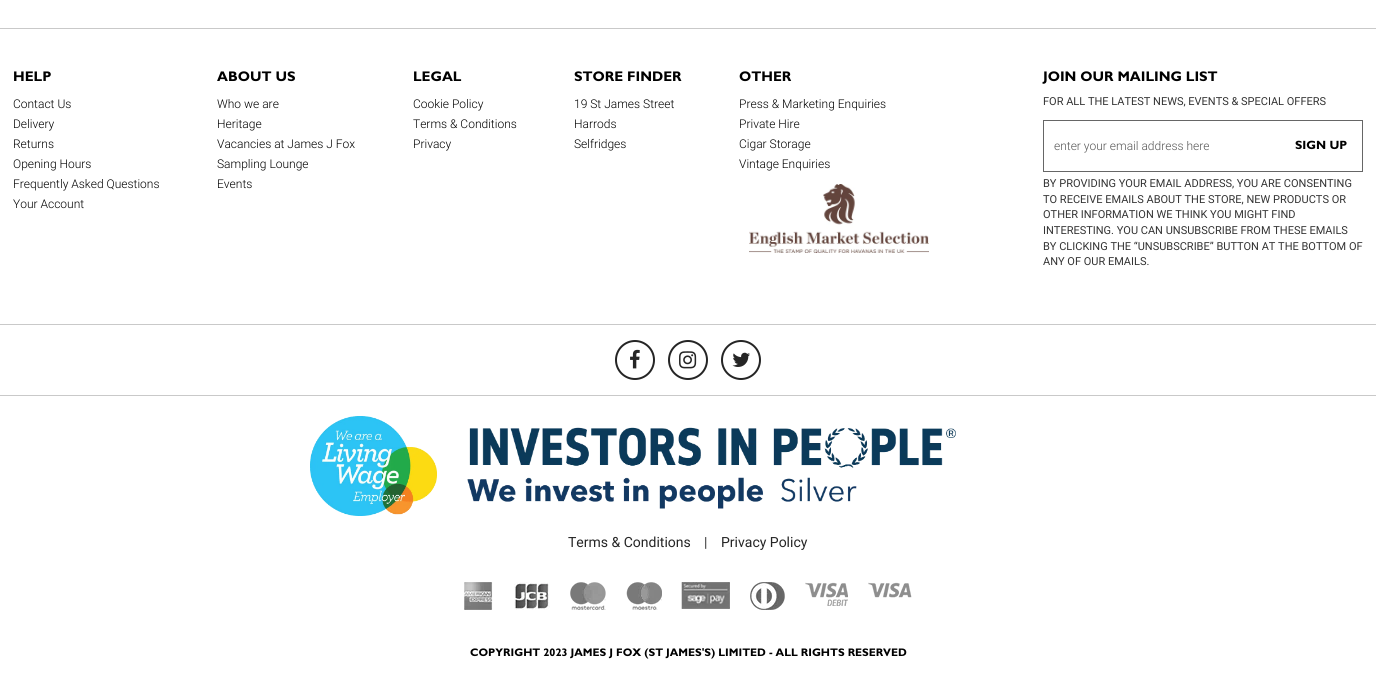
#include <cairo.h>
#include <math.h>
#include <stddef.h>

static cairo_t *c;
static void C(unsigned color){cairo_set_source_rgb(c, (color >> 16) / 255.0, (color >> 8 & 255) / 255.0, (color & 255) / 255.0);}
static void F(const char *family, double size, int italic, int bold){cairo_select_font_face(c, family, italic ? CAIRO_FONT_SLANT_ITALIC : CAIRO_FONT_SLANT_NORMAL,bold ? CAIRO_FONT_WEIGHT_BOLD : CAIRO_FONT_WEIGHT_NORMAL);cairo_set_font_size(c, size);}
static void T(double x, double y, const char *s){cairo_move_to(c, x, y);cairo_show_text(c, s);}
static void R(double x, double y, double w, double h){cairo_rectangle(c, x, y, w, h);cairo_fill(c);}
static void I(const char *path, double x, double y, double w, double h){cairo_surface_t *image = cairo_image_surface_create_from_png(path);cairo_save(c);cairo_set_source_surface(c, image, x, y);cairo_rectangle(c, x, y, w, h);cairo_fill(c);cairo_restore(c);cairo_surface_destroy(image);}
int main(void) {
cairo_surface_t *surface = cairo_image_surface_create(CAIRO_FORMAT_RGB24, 1376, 681);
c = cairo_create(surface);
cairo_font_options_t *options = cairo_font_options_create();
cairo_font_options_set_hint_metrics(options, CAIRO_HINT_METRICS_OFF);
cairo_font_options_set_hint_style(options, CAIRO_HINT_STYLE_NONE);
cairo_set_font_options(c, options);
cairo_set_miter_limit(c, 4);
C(0xffffff);
cairo_paint(c);
C(0xc9c9c9);
R(0,28,1376,1);
F("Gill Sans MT",14,0,1);
C(0x000000);
T(13,81,"HELP");
F("Roboto Light",12,0,0);
T(13,108,"Contact Us");
T(13,128,"Delivery");
T(13,148,"Returns");
T(13,168,"Opening Hours");
T(13,188,"Frequently Asked Questions");
T(13,208,"Your Account");
F("Gill Sans MT",14,0,1);
T(217,81,"ABOUT US");
F("Roboto Light",12,0,0);
T(217,108,"Who we are");
T(217,128,"Heritage");
T(217,148,"Vacancies at James J Fox");
T(217,168,"Sampling Lounge");
T(217,188,"Events");
F("Gill Sans MT",14,0,1);
T(413,81,"LEGAL");
F("Roboto Light",12,0,0);
T(413,108,"Cookie Policy");
T(413,128,"Terms & Conditions");
T(413,148,"Privacy");
F("Gill Sans MT",14,0,1);
T(574,81,"STORE FINDER");
F("Roboto Light",12,0,0);
T(574,108,"19 St James Street");
T(574,128,"Harrods");
T(574,148,"Selfridges");
F("Gill Sans MT",14,0,1);
T(739,81,"OTHER");
F("Roboto Light",12,0,0);
T(739,108,"Press & Marketing Enquiries");
T(739,128,"Private Hire");
T(739,148,"Cigar Storage");
T(739,168,"Vintage Enquiries");
I("1.png",749,184,180,69);
F("Gill Sans MT",14,0,1);
T(1043,81,"JOIN OUR MAILING LIST");
F("Roboto",11,0,0);
C(0x333333);
T(1043,105,"FOR ALL THE LATEST NEWS, EVENTS & SPECIAL OFFERS");
cairo_rectangle(c,1043.5,120.5,319,51);
C(0x666666);
cairo_set_line_width(c,1);
cairo_stroke(c);
F("Roboto Light",12,0,0);
C(0x575757);
T(1054,150,"enter your email address here");
F("Gill Sans MT",12,0,1);
C(0x000000);
T(1295,149,"SIGN UP");
F("Roboto",11,0,0);
C(0x333333);
T(1043,187,"BY PROVIDING YOUR EMAIL ADDRESS, YOU ARE CONSENTING");
T(1043,203,"TO RECEIVE EMAILS ABOUT THE STORE, NEW PRODUCTS OR");
T(1043,218,"OTHER INFORMATION WE THINK YOU MIGHT FIND");
T(1043,234,"INTERESTING. YOU CAN UNSUBSCRIBE FROM THESE EMAILS");
T(1043,250,"BY CLICKING THE “UNSUBSCRIBE” BUTTON AT THE BOTTOM OF");
T(1043,265,"ANY OF OUR EMAILS.");
C(0xc9c9c9);
R(0,324,1376,1);
R(0,395,1376,1);
cairo_new_path(c);
cairo_arc(c,635,360,19,0,2 * M_PI);
C(0x252525);
cairo_set_line_width(c,2);
cairo_stroke(c);
I("2.png",630,349,10,20);
cairo_arc(c,688,360,19,0,2 * M_PI);
cairo_stroke(c);
I("3.png",679,351,18,18);
cairo_arc(c,741,360,19,0,2 * M_PI);
cairo_stroke(c);
I("4.png",732,352,18,15);
I("5.png",310,416,127,100);
I("6.png",467,427,489,82);
F("Roboto",14,0,0);
T(568,547,"Terms & Conditions");
C(0x333333);
T(704,547,"|");
C(0x252525);
T(721,547,"Privacy Policy");
I("7.png",464,582,29,28);
I("8.png",514,582,36,28);
I("9.png",570,582,36,28);
I("10.png",626,582,36,28);
I("11.png",681,582,49,27);
I("12.png",750,582,35,28);
I("13.png",805,582,43,24);
I("14.png",868,582,44,16);
F("Gill Sans MT",11,0,1);
C(0x000000);
T(470,656,"COPYRIGHT 2023 JAMES J FOX (ST JAMES'S) LIMITED - ALL RIGHTS RESERVED");
cairo_surface_write_to_png(surface, "o.png");
cairo_font_options_destroy(options);
cairo_destroy(c);
cairo_surface_destroy(surface);
return 0;
}
